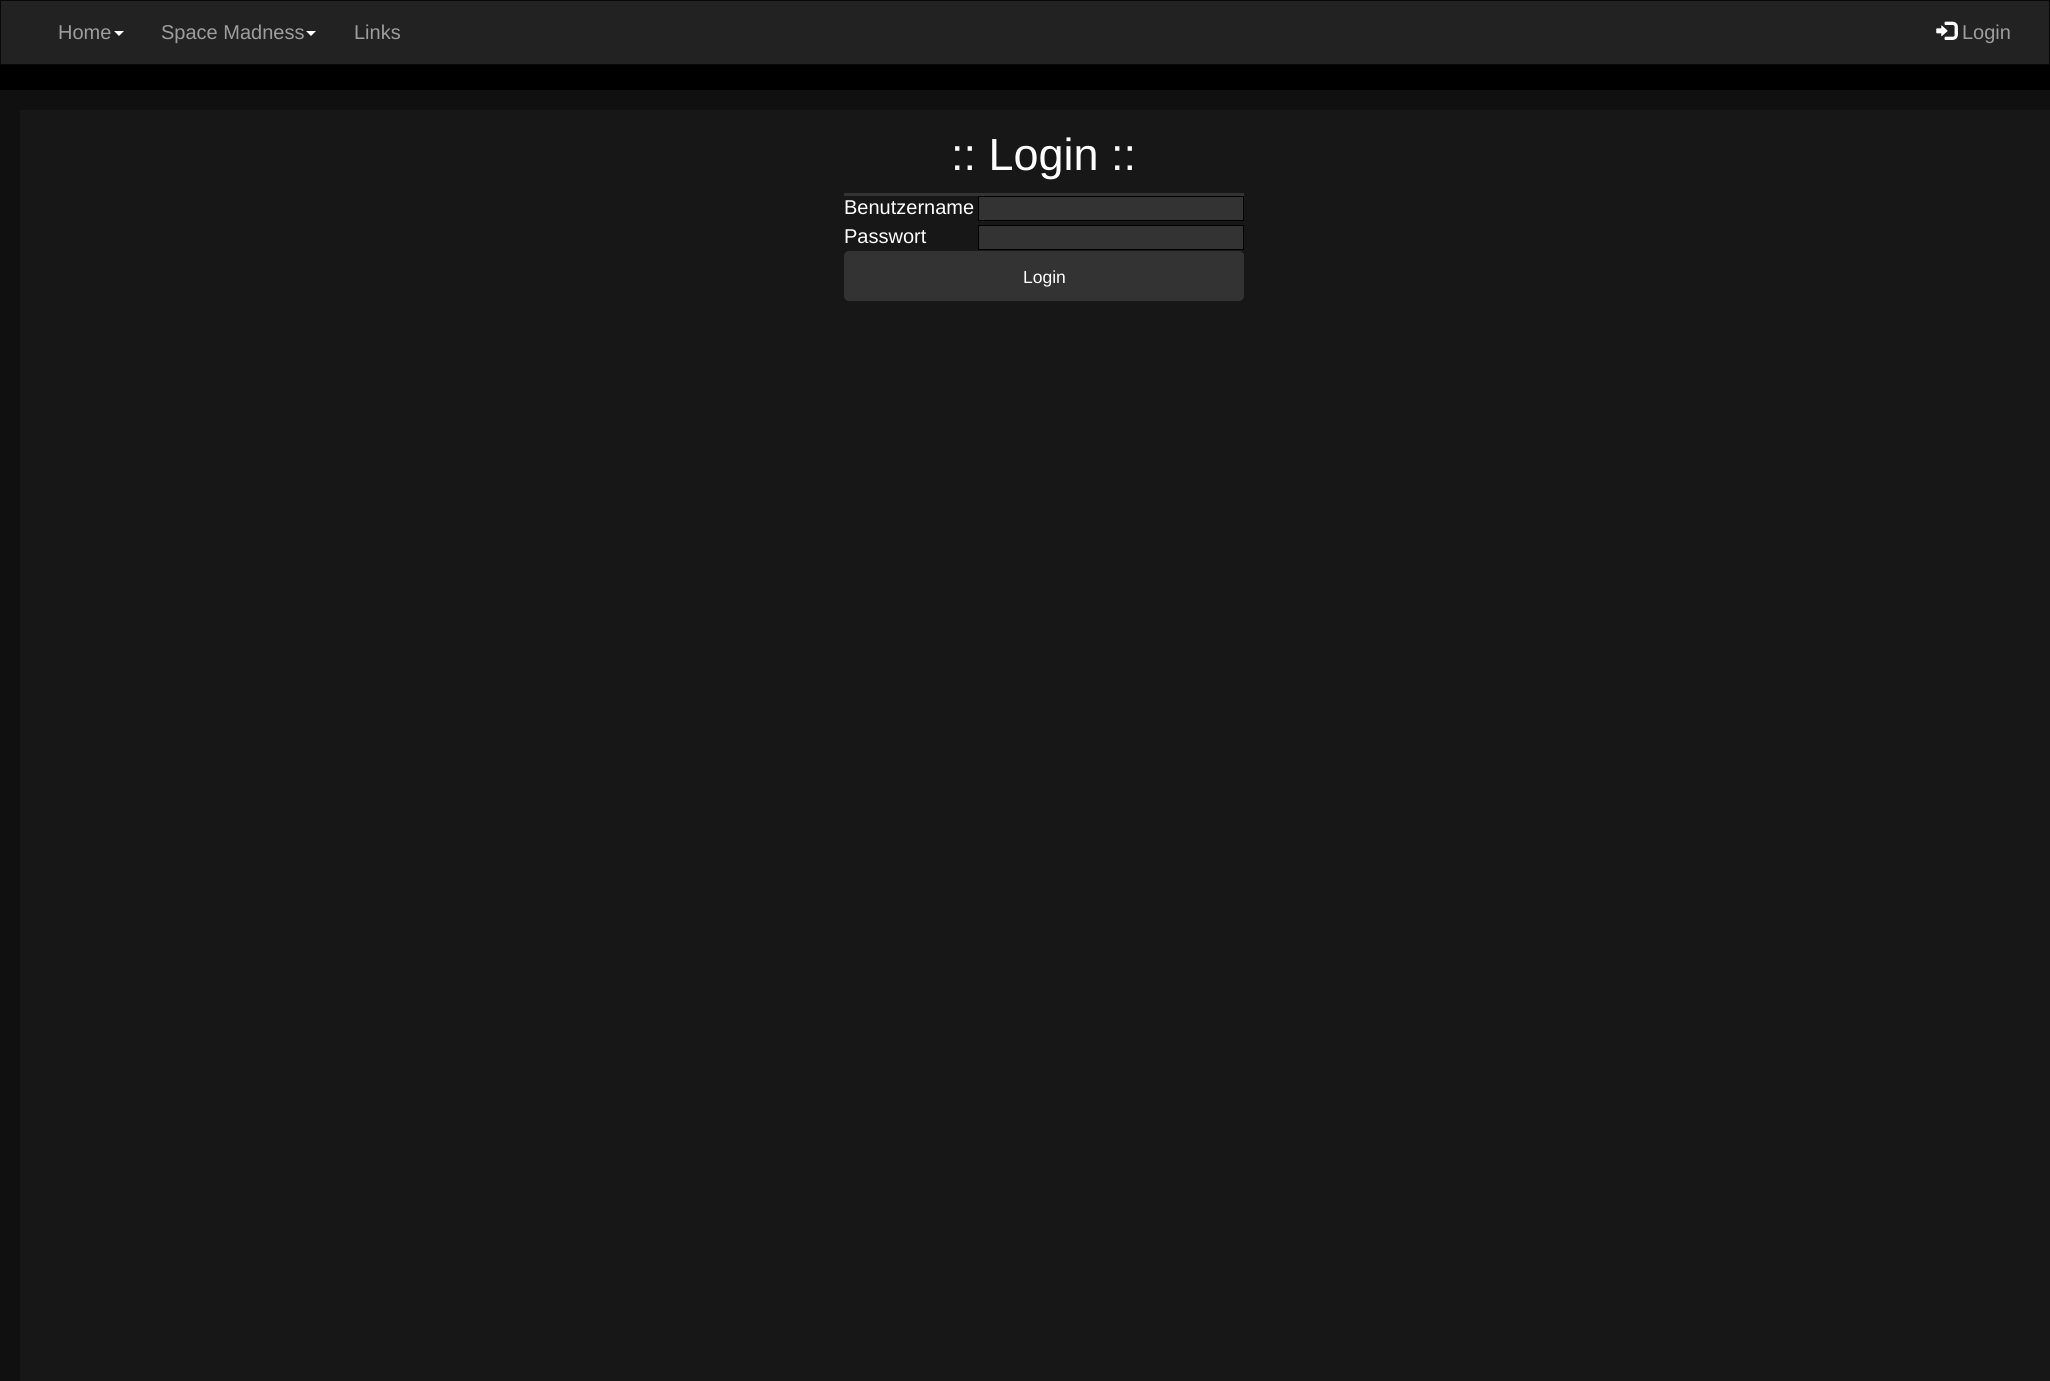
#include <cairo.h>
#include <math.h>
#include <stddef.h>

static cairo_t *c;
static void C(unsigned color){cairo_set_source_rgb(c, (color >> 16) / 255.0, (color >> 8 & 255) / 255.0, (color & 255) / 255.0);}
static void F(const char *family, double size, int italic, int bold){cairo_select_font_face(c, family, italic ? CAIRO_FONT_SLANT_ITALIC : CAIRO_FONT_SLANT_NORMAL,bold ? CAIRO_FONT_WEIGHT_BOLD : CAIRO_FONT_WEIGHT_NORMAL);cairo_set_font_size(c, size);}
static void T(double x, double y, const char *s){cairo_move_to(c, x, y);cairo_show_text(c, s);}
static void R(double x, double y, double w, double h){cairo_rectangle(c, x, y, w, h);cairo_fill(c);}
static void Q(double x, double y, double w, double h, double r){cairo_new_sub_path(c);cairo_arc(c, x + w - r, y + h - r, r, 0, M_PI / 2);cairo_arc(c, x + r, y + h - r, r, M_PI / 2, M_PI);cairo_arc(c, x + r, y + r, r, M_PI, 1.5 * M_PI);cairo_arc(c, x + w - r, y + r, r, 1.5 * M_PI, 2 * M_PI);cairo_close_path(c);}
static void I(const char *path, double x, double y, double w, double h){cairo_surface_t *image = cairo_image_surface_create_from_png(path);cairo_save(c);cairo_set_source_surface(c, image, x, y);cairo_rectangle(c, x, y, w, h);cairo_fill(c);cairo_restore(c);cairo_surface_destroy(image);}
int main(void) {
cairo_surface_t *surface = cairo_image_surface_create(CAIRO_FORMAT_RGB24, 2050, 1381);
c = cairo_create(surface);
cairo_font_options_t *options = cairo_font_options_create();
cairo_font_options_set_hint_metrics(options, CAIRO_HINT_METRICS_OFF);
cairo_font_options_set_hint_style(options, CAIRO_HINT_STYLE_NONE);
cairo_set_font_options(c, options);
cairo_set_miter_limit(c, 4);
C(0x000000);
cairo_paint(c);
C(0x222222);
cairo_rectangle(c,.5,.5,2049,64);
cairo_fill_preserve(c);
C(0x080808);
cairo_set_line_width(c,1);
cairo_stroke(c);
F("Liberation Sans",20,0,0);
C(0x9d9d9d);
T(58,39,"Home");
C(0xffffff);
cairo_new_path(c);
cairo_move_to(c,114,31);
cairo_line_to(c,124,31);
cairo_line_to(c,119,36);
cairo_close_path(c);
cairo_fill(c);
C(0x9d9d9d);
T(161,39,"Space Madness");
C(0xffffff);
cairo_new_path(c);
cairo_move_to(c,306,31);
cairo_line_to(c,316,31);
cairo_line_to(c,311,36);
cairo_close_path(c);
cairo_fill(c);
C(0x9d9d9d);
T(354,39,"Links");
I("1.png",1936,21,22,19);
T(1962,39,"Login");
C(0x101010);
R(0,90,2050,1291);
C(0x171717);
R(20,110,2030,1271);
F("Liberation Sans",45,0,0);
C(0xffffff);
T(951,170,":: Login ::");
C(0x333333);
R(844,193,400,3);
F("Liberation Sans",20,0,0);
C(0xffffff);
T(844,214,"Benutzername");
C(0x333333);
cairo_rectangle(c,978.5,196.5,265,24);
cairo_fill_preserve(c);
C(0x000000);
cairo_stroke(c);
C(0xffffff);
T(844,243,"Passwort");
C(0x333333);
cairo_rectangle(c,978.5,225.5,265,24);
cairo_fill_preserve(c);
C(0x000000);
cairo_stroke(c);
C(0x333333);
Q(844,251,400,50,5);
cairo_fill(c);
F("Liberation Sans",17.5,0,0);
C(0xffffff);
T(1023,283,"Login");
cairo_surface_write_to_png(surface, "o.png");
cairo_font_options_destroy(options);
cairo_destroy(c);
cairo_surface_destroy(surface);
return 0;
}
